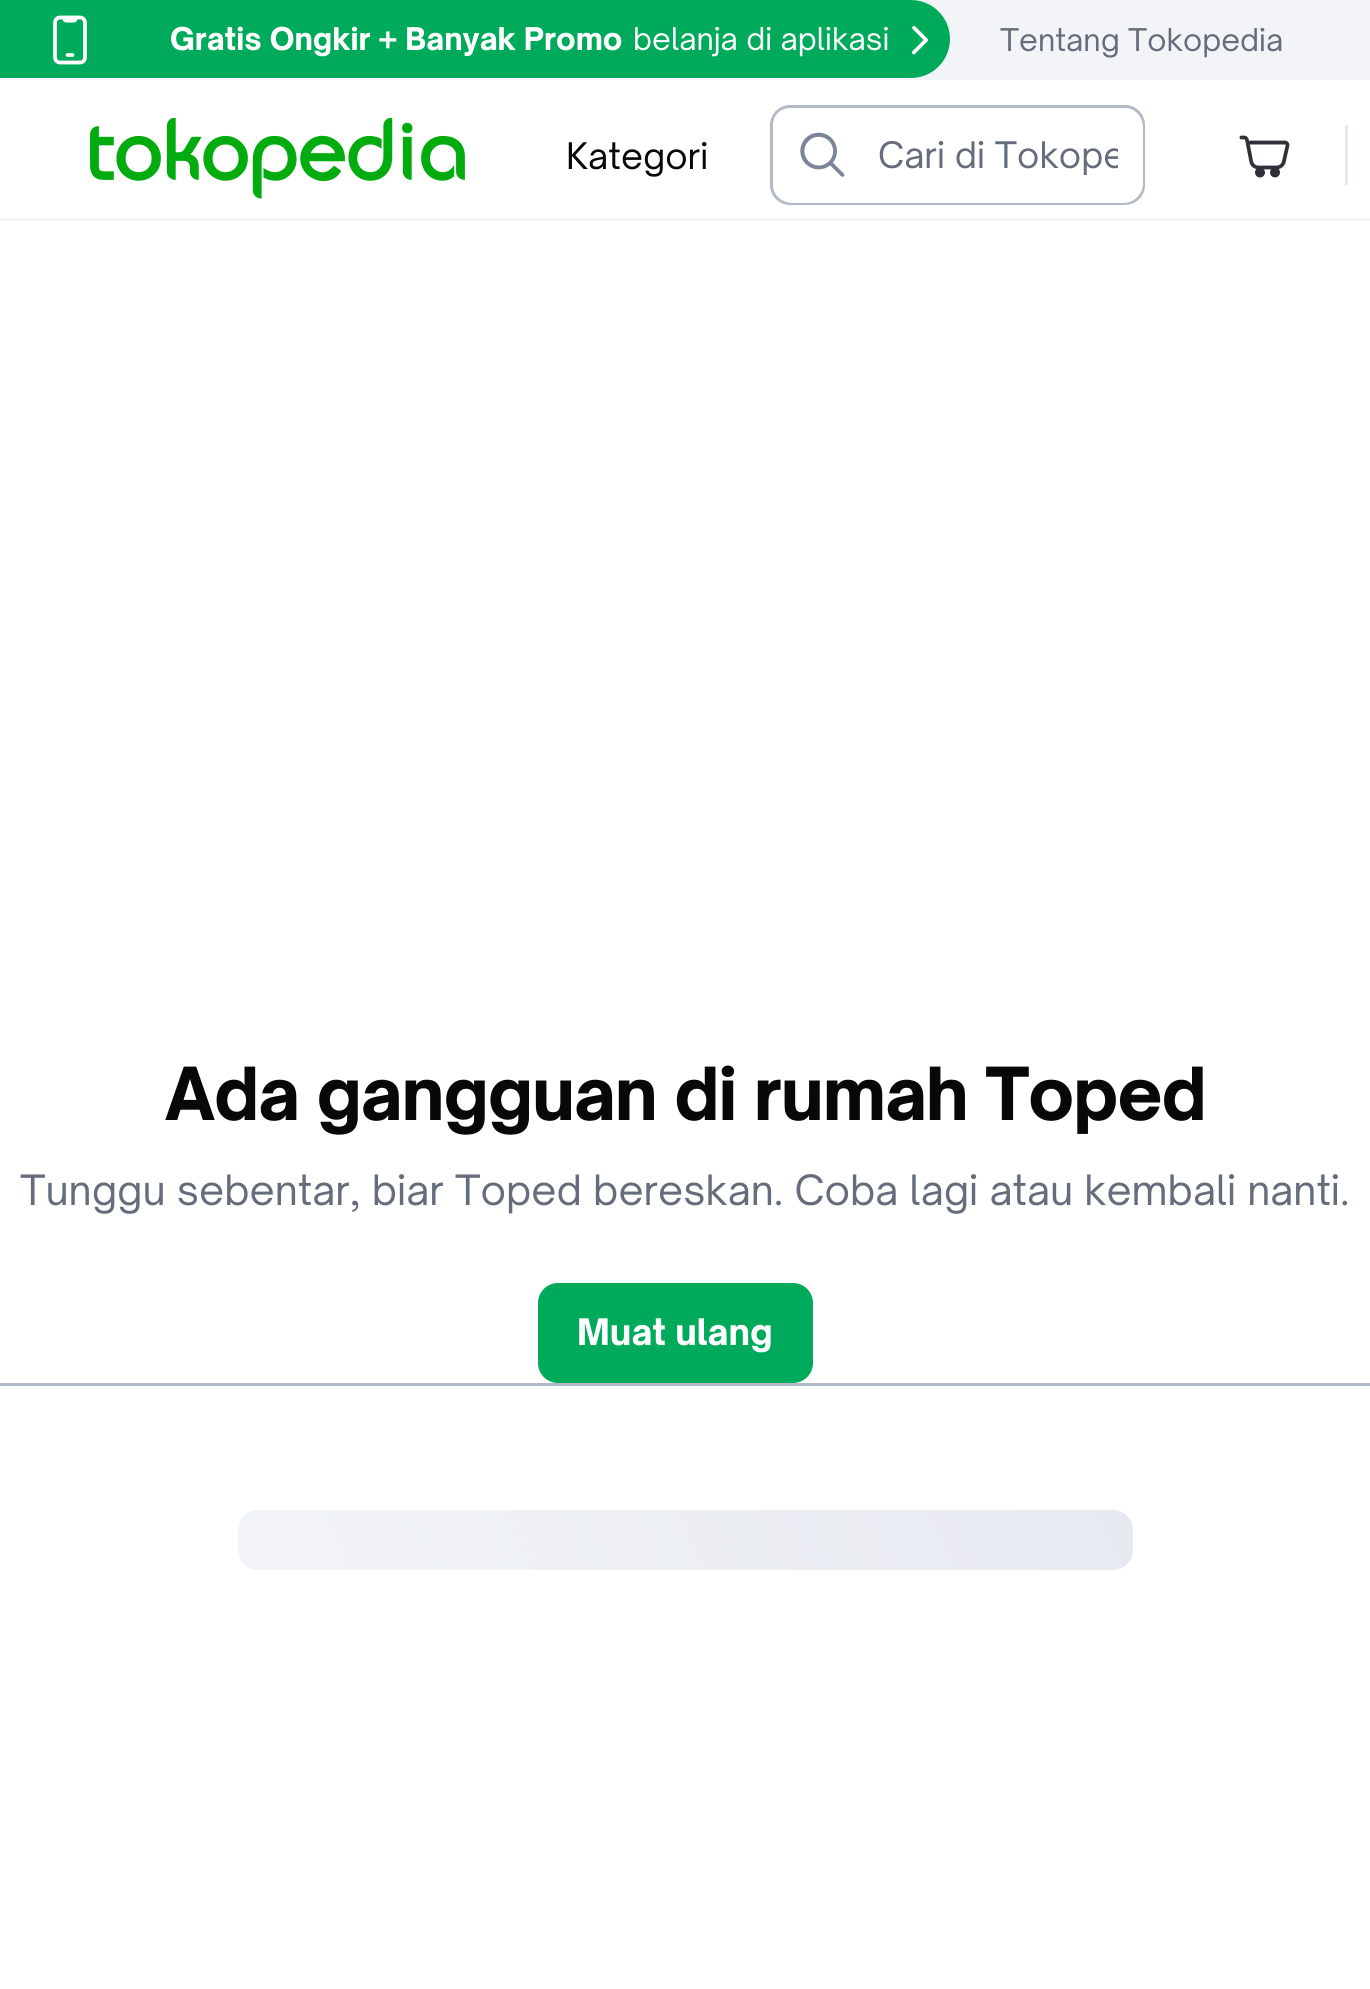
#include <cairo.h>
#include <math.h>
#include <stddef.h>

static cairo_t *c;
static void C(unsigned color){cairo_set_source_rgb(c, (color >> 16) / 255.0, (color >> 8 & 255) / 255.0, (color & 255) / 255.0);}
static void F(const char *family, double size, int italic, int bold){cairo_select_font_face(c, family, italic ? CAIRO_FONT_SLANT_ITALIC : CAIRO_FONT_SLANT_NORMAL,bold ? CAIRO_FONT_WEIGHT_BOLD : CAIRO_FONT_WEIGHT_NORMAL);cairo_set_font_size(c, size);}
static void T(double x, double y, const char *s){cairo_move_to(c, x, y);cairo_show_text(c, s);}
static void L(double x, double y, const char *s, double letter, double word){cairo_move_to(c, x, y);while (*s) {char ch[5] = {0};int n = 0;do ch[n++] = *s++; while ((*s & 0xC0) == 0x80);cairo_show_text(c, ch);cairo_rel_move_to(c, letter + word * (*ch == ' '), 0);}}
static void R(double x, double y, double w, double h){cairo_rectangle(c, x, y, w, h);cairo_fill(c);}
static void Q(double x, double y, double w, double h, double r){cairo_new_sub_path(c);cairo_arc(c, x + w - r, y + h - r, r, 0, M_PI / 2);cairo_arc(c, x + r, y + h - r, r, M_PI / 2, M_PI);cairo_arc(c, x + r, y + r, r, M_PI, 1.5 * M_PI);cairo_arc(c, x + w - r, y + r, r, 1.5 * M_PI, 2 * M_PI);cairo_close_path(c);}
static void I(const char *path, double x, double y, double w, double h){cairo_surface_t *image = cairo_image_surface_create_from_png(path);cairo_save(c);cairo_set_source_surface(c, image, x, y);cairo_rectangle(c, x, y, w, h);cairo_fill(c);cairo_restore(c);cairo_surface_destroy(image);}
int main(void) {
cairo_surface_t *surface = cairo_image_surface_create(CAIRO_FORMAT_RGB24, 1370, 1989);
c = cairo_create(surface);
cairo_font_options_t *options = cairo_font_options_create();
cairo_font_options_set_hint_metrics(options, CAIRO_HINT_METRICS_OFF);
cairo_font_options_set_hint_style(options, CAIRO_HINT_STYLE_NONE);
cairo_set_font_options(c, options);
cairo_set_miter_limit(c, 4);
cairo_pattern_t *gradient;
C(0xffffff);
cairo_paint(c);
C(0xf2f4f7);
R(0,218,1370,3);
R(0,0,1370,80);
C(0x00aa5b);
cairo_new_path(c);
cairo_move_to(c,0,0);
cairo_line_to(c,911,0);
cairo_curve_to(c,932.5,0,950,17.5,950,39);
cairo_curve_to(c,950,60.5,932.5,78,911,78);
cairo_line_to(c,0,78);
cairo_close_path(c);
cairo_fill(c);
I("1.png",53,15,34,50);
F("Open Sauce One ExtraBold",30,0,0);
C(0xffffff);
T(170,50,"Gratis Ongkir + Banyak Promo");
F("Open Sauce One",30,0,0);
T(633,50,"belanja di aplikasi");
I("2.png",911,25,17,30);
C(0x656c7b);
T(1000,51,"Tentang Tokopedia");
I("3.png",90,118,375,81);
F("Open Sauce One",35,0,0);
C(0x080808);
T(566,169,"Kategori");
Q(771.5,106.5,372,97,18.5);
C(0xb3bbc9);
cairo_set_line_width(c,3);
cairo_stroke(c);
C(0xffffff);
Q(773,108,370,95,20);
cairo_fill(c);
I("4.png",800,132,45,45);
cairo_save(c);
cairo_rectangle(c,878,133,240,42);
cairo_clip(c);
C(0x656c7b);
T(878,168,"Cari di Tokope");
cairo_restore(c);
I("5.png",1239,135,51,43);
C(0xe6e9f0);
R(1345,125,3,60);
F("Open Sauce One ExtraBold",70,0,0);
C(0x080808);
L(165,1120,"Ada gangguan di rumah Toped",-1,0);
F("Open Sauce One",40,0,0);
C(0x656c7b);
T(20,1205,"Tunggu sebentar, biar Toped bereskan. Coba lagi atau kembali nanti.");
C(0x00aa5b);
Q(538,1283,275,100,20);
cairo_fill(c);
F("Open Sauce One ExtraBold",35,0,0);
C(0xffffff);
T(577,1345,"Muat ulang");
C(0xb3bbc9);
R(0,1383,1370,3);
gradient = cairo_pattern_create_linear(306,1717,1064,1363);
cairo_pattern_add_color_stop_rgba(gradient,0,0.949,0.957,0.969,1);
cairo_pattern_add_color_stop_rgba(gradient,1,0.902,0.914,0.941,1);
cairo_set_source(c,gradient);
cairo_pattern_destroy(gradient);
Q(238,1510,895,60,20);
cairo_fill(c);
cairo_surface_write_to_png(surface, "o.png");
cairo_font_options_destroy(options);
cairo_destroy(c);
cairo_surface_destroy(surface);
return 0;
}
